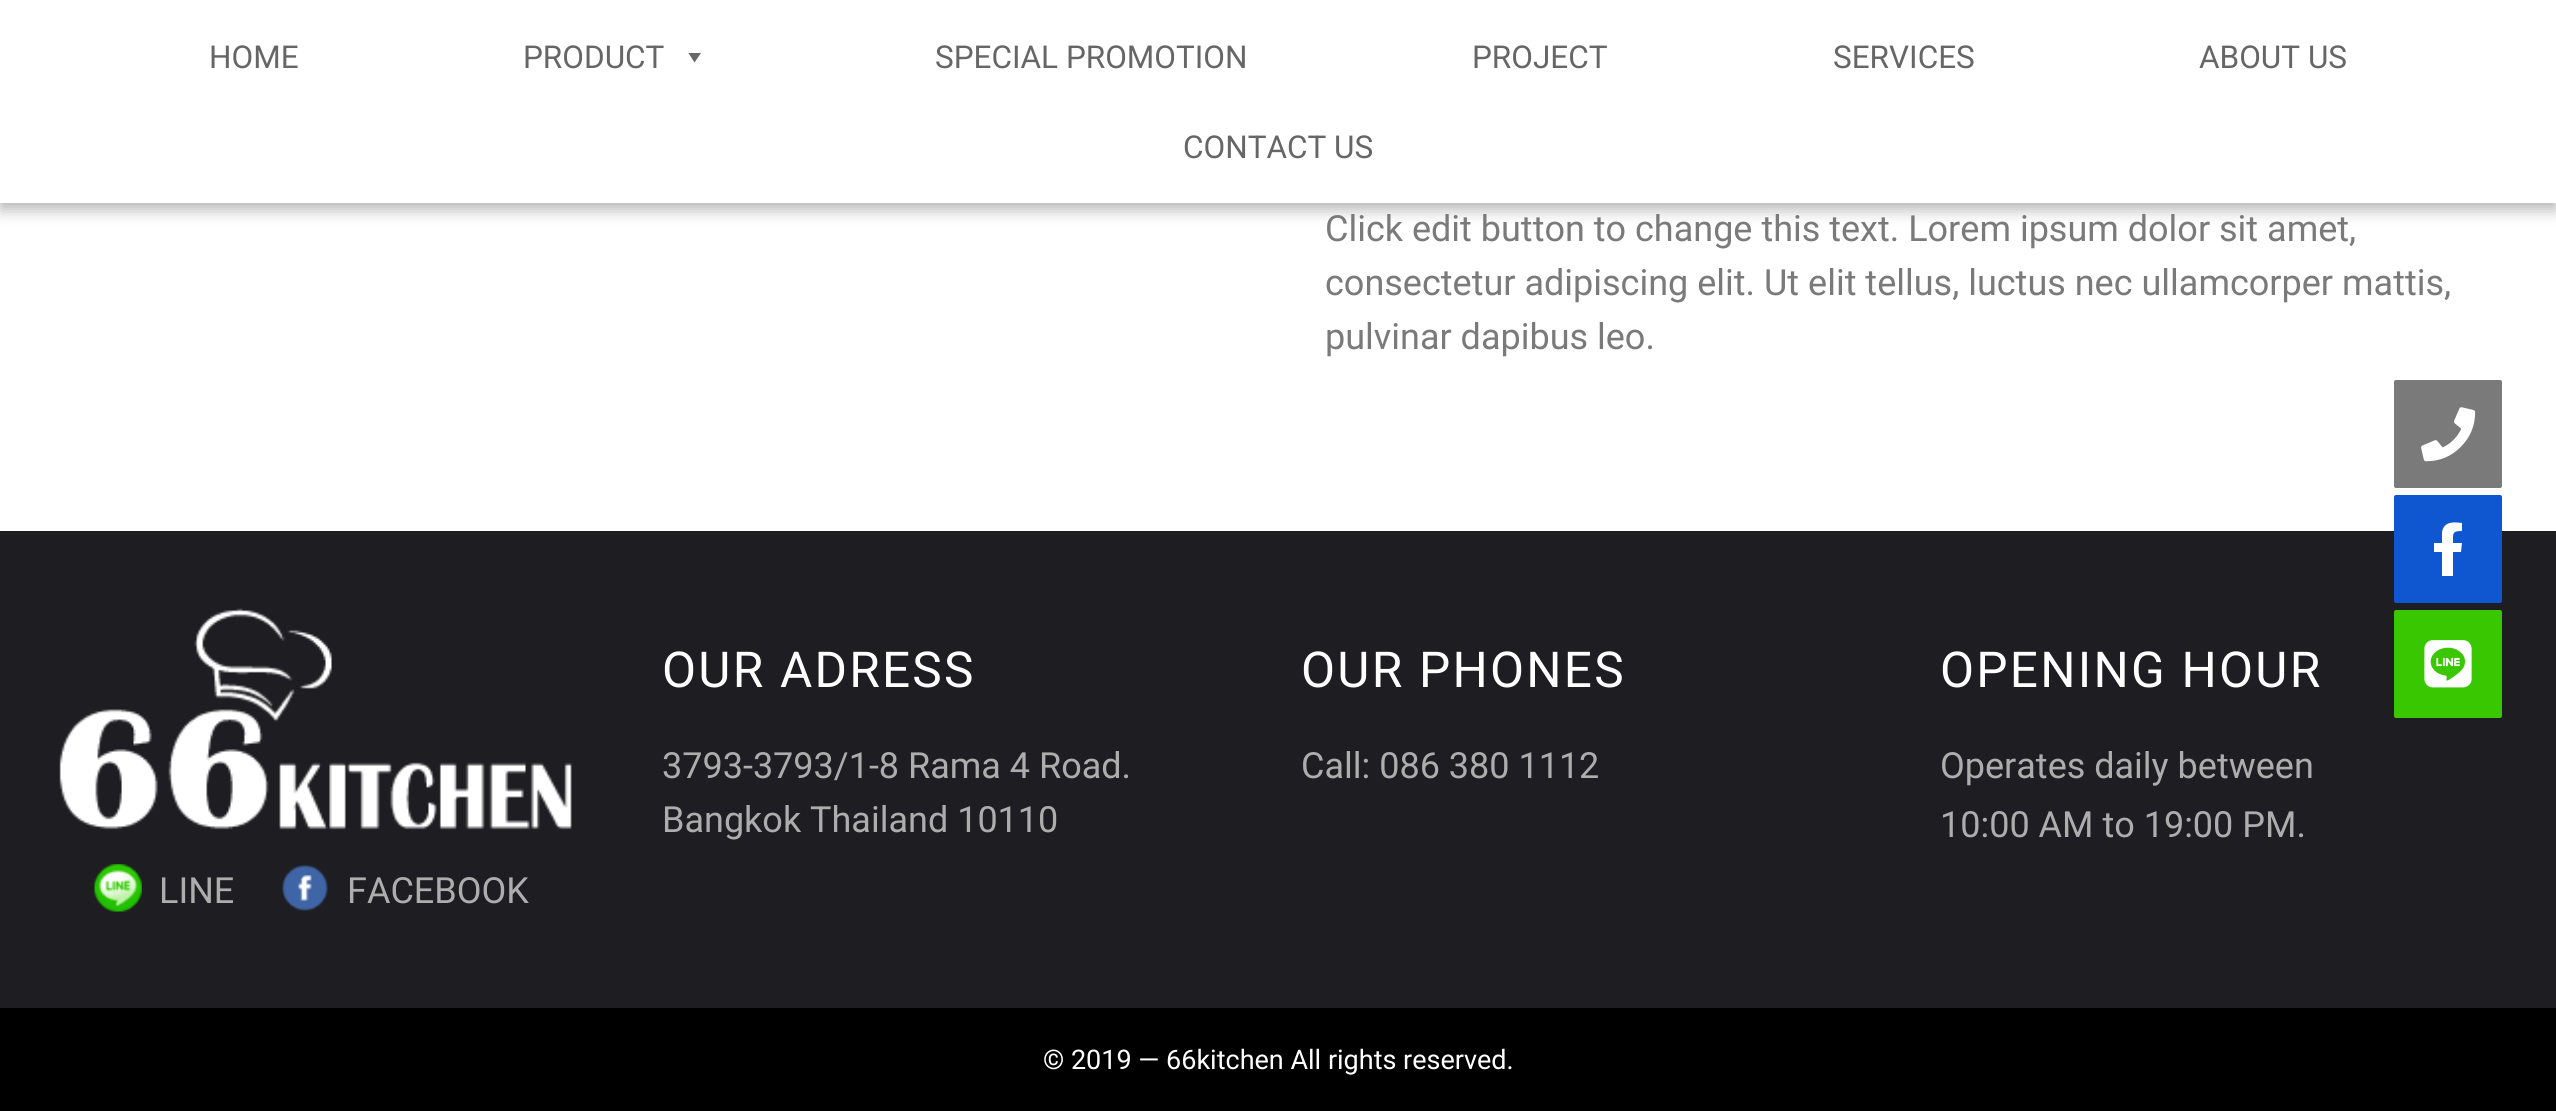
#include <cairo.h>
#include <math.h>
#include <stddef.h>

static cairo_t *c;
static void C(unsigned color){cairo_set_source_rgb(c, (color >> 16) / 255.0, (color >> 8 & 255) / 255.0, (color & 255) / 255.0);}
static void F(const char *family, double size, int italic, int bold){cairo_select_font_face(c, family, italic ? CAIRO_FONT_SLANT_ITALIC : CAIRO_FONT_SLANT_NORMAL,bold ? CAIRO_FONT_WEIGHT_BOLD : CAIRO_FONT_WEIGHT_NORMAL);cairo_set_font_size(c, size);}
static void T(double x, double y, const char *s){cairo_move_to(c, x, y);cairo_show_text(c, s);}
static void L(double x, double y, const char *s, double letter, double word){cairo_move_to(c, x, y);while (*s) {char ch[5] = {0};int n = 0;do ch[n++] = *s++; while ((*s & 0xC0) == 0x80);cairo_show_text(c, ch);cairo_rel_move_to(c, letter + word * (*ch == ' '), 0);}}
static void R(double x, double y, double w, double h){cairo_rectangle(c, x, y, w, h);cairo_fill(c);}
static void Q(double x, double y, double w, double h, double r){cairo_new_sub_path(c);cairo_arc(c, x + w - r, y + h - r, r, 0, M_PI / 2);cairo_arc(c, x + r, y + h - r, r, M_PI / 2, M_PI);cairo_arc(c, x + r, y + r, r, M_PI, 1.5 * M_PI);cairo_arc(c, x + w - r, y + r, r, 1.5 * M_PI, 2 * M_PI);cairo_close_path(c);}
static void S(double x, double y, double w, double h, double r, double blur, double alpha){cairo_push_group_with_content(c, CAIRO_CONTENT_ALPHA);cairo_set_operator(c, CAIRO_OPERATOR_SOURCE);for (int i = 15; i >= -15 && fmin(w, h) + blur * i / 3 > 0; i -= 2) {double e = blur * i / 6;cairo_set_source_rgba(c, 0, 0, 0, alpha * erfc((i - 1) / 8.5) / 2);Q(x - e, y - e, w + 2 * e, h + 2 * e, fmax(0, fmin(r + e + blur * .6, fmin(w, h) / 2 + e)));cairo_fill(c);}cairo_pattern_t *soft = cairo_pop_group(c);cairo_mask(c, soft);cairo_pattern_destroy(soft);}
static void I(const char *path, double x, double y, double w, double h){cairo_surface_t *image = cairo_image_surface_create_from_png(path);cairo_save(c);cairo_set_source_surface(c, image, x, y);cairo_rectangle(c, x, y, w, h);cairo_fill(c);cairo_restore(c);cairo_surface_destroy(image);}
int main(void) {
cairo_surface_t *surface = cairo_image_surface_create(CAIRO_FORMAT_RGB24, 2556, 1111);
c = cairo_create(surface);
cairo_font_options_t *options = cairo_font_options_create();
cairo_font_options_set_hint_metrics(options, CAIRO_HINT_METRICS_OFF);
cairo_font_options_set_hint_style(options, CAIRO_HINT_STYLE_NONE);
cairo_set_font_options(c, options);
cairo_set_miter_limit(c, 4);
C(0xffffff);
cairo_paint(c);
C(0x000000);
S(0,7,2556,202,0,8,.31);
C(0xffffff);
R(0,0,2556,203);
F("Roboto",31.5,0,0);
C(0x666666);
T(209,68,"HOME");
T(523,68,"PRODUCT");
cairo_new_path(c);
cairo_move_to(c,701,53);
cairo_line_to(c,694.5,62.5);
cairo_line_to(c,688.5,53);
cairo_close_path(c);
cairo_fill(c);
T(935,68,"SPECIAL PROMOTION");
T(1472,68,"PROJECT");
T(1833,68,"SERVICES");
T(2199,68,"ABOUT US");
T(1183,158,"CONTACT US");
F("Roboto",36,0,0);
C(0x7a7a7a);
T(1325,241,"Click edit button to change this text. Lorem ipsum dolor sit amet,");
T(1325,295,"consectetur adipiscing elit. Ut elit tellus, luctus nec ullamcorper mattis,");
T(1325,349,"pulvinar dapibus leo.");
Q(2394,380,108,108,2);
cairo_fill(c);
I("1.png",2421,407,55,55);
C(0x1e1d21);
R(0,531,2556,477);
C(0x0f57d0);
Q(2394,495,108,108,2);
cairo_fill(c);
C(0xffffff);
cairo_new_path(c);
cairo_move_to(c,2461,552);
cairo_line_to(c,2453,552);
cairo_line_to(c,2453,576);
cairo_line_to(c,2442,576);
cairo_line_to(c,2442,552);
cairo_line_to(c,2434,552);
cairo_line_to(c,2434,543);
cairo_line_to(c,2442,543);
cairo_line_to(c,2442,532);
cairo_curve_to(c,2444,521,2454,522,2462,523);
cairo_line_to(c,2462,531);
cairo_curve_to(c,2452,531,2453,533,2453,543);
cairo_line_to(c,2462,543);
cairo_close_path(c);
cairo_fill(c);
C(0x38c701);
Q(2394,610,108,108,2);
cairo_fill(c);
I("2.png",2424,640,48,48);
F("Roboto",49.5,0,0);
C(0xffffff);
L(662,687,"OUR ADRESS",2.25,0);
F("Roboto",36,0,0);
C(0xadadad);
T(662,778,"3793-3793/1-8 Rama 4 Road.");
T(662,832,"Bangkok Thailand 10110");
F("Roboto",49.5,0,0);
C(0xffffff);
L(1301,687,"OUR PHONES",2.25,0);
F("Roboto",36,0,0);
C(0xadadad);
T(1301,778,"Call: 086 380 1112");
F("Roboto",49.5,0,0);
C(0xffffff);
L(1940,687,"OPENING HOUR",2.25,0);
F("Roboto",36,0,0);
C(0xadadad);
T(1940,778,"Operates daily between");
T(1940,837,"10:00 AM to 19:00 PM.");
I("3.png",59,608,513,222);
I("4.png",94,864,48,48);
T(159,903,"LINE");
I("5.png",281,864,48,48);
T(347,903,"FACEBOOK");
C(0x000000);
R(0,1008,2556,103);
F("Roboto",27,0,0);
C(0xffffff);
T(1043,1069,"© 2019 — 66kitchen All rights reserved.");
cairo_surface_write_to_png(surface, "o.png");
cairo_font_options_destroy(options);
cairo_destroy(c);
cairo_surface_destroy(surface);
return 0;
}
